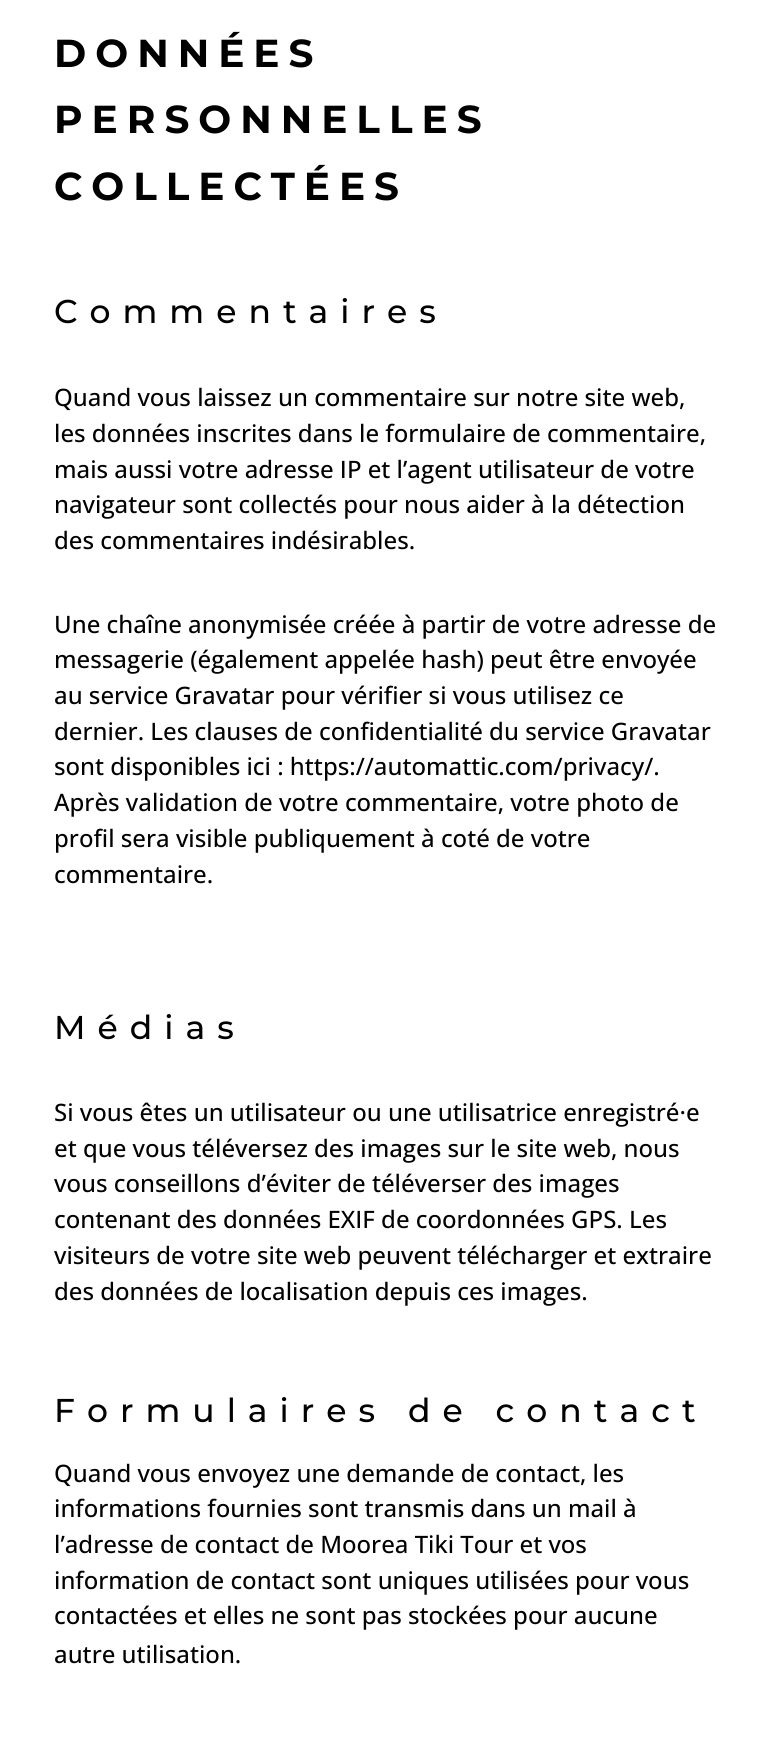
#include <cairo.h>
#include <math.h>
#include <stddef.h>

static cairo_t *c;
static void C(unsigned color){cairo_set_source_rgb(c, (color >> 16) / 255.0, (color >> 8 & 255) / 255.0, (color & 255) / 255.0);}
static void F(const char *family, double size, int italic, int bold){cairo_select_font_face(c, family, italic ? CAIRO_FONT_SLANT_ITALIC : CAIRO_FONT_SLANT_NORMAL,bold ? CAIRO_FONT_WEIGHT_BOLD : CAIRO_FONT_WEIGHT_NORMAL);cairo_set_font_size(c, size);}
static void T(double x, double y, const char *s){cairo_move_to(c, x, y);cairo_show_text(c, s);}
static void L(double x, double y, const char *s, double letter, double word){cairo_move_to(c, x, y);while (*s) {char ch[5] = {0};int n = 0;do ch[n++] = *s++; while ((*s & 0xC0) == 0x80);cairo_show_text(c, ch);cairo_rel_move_to(c, letter + word * (*ch == ' '), 0);}}
int main(void) {
cairo_surface_t *surface = cairo_image_surface_create(CAIRO_FORMAT_RGB24, 772, 1743);
c = cairo_create(surface);
cairo_font_options_t *options = cairo_font_options_create();
cairo_font_options_set_hint_metrics(options, CAIRO_HINT_METRICS_OFF);
cairo_font_options_set_hint_style(options, CAIRO_HINT_STYLE_NONE);
cairo_set_font_options(c, options);
cairo_set_miter_limit(c, 4);
C(0xffffff);
cairo_paint(c);
F("Montserrat Thin",39,0,0);
C(0x000000);
L(54,67,"DONNÉES",9,0);
L(54,133,"PERSONNELLES",9,0);
L(54,200,"COLLECTÉES",9,0);
F("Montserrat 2 Thin",33,0,0);
L(54,323,"Commentaires",12,0);
F("Open Sans Medium",24,0,0);
T(54,406,"Quand vous laissez un commentaire sur notre site web,");
T(54,442,"les données inscrites dans le formulaire de commentaire,");
T(54,478,"mais aussi votre adresse IP et l’agent utilisateur de votre");
T(54,513,"navigateur sont collectés pour nous aider à la détection");
T(54,549,"des commentaires indésirables.");
T(54,633,"Une chaîne anonymisée créée à partir de votre adresse de");
T(54,668,"messagerie (également appelée hash) peut être envoyée");
T(54,704,"au service Gravatar pour vérifier si vous utilisez ce");
T(54,740,"dernier. Les clauses de confidentialité du service Gravatar");
T(54,775,"sont disponibles ici : https://automattic.com/privacy/.");
T(54,811,"Après validation de votre commentaire, votre photo de");
T(54,847,"profil sera visible publiquement à coté de votre");
T(54,883,"commentaire.");
F("Montserrat 2 Thin",33,0,0);
L(54,1039,"Médias",12,0);
F("Open Sans Medium",24,0,0);
T(54,1121,"Si vous êtes un utilisateur ou une utilisatrice enregistré·e");
T(54,1157,"et que vous téléversez des images sur le site web, nous");
T(54,1192,"vous conseillons d’éviter de téléverser des images");
T(54,1228,"contenant des données EXIF de coordonnées GPS. Les");
T(54,1264,"visiteurs de votre site web peuvent télécharger et extraire");
T(54,1300,"des données de localisation depuis ces images.");
F("Montserrat 2 Thin",33,0,0);
L(54,1422,"Formulaires de contact",12,0);
F("Open Sans Medium",24,0,0);
T(54,1482,"Quand vous envoyez une demande de contact, les");
T(54,1517,"informations fournies sont transmis dans un mail à");
T(54,1553,"l’adresse de contact de Moorea Tiki Tour et vos");
T(54,1589,"information de contact sont uniques utilisées pour vous");
T(54,1624,"contactées et elles ne sont pas stockées pour aucune");
T(54,1663,"autre utilisation.");
cairo_surface_write_to_png(surface, "o.png");
cairo_font_options_destroy(options);
cairo_destroy(c);
cairo_surface_destroy(surface);
return 0;
}
